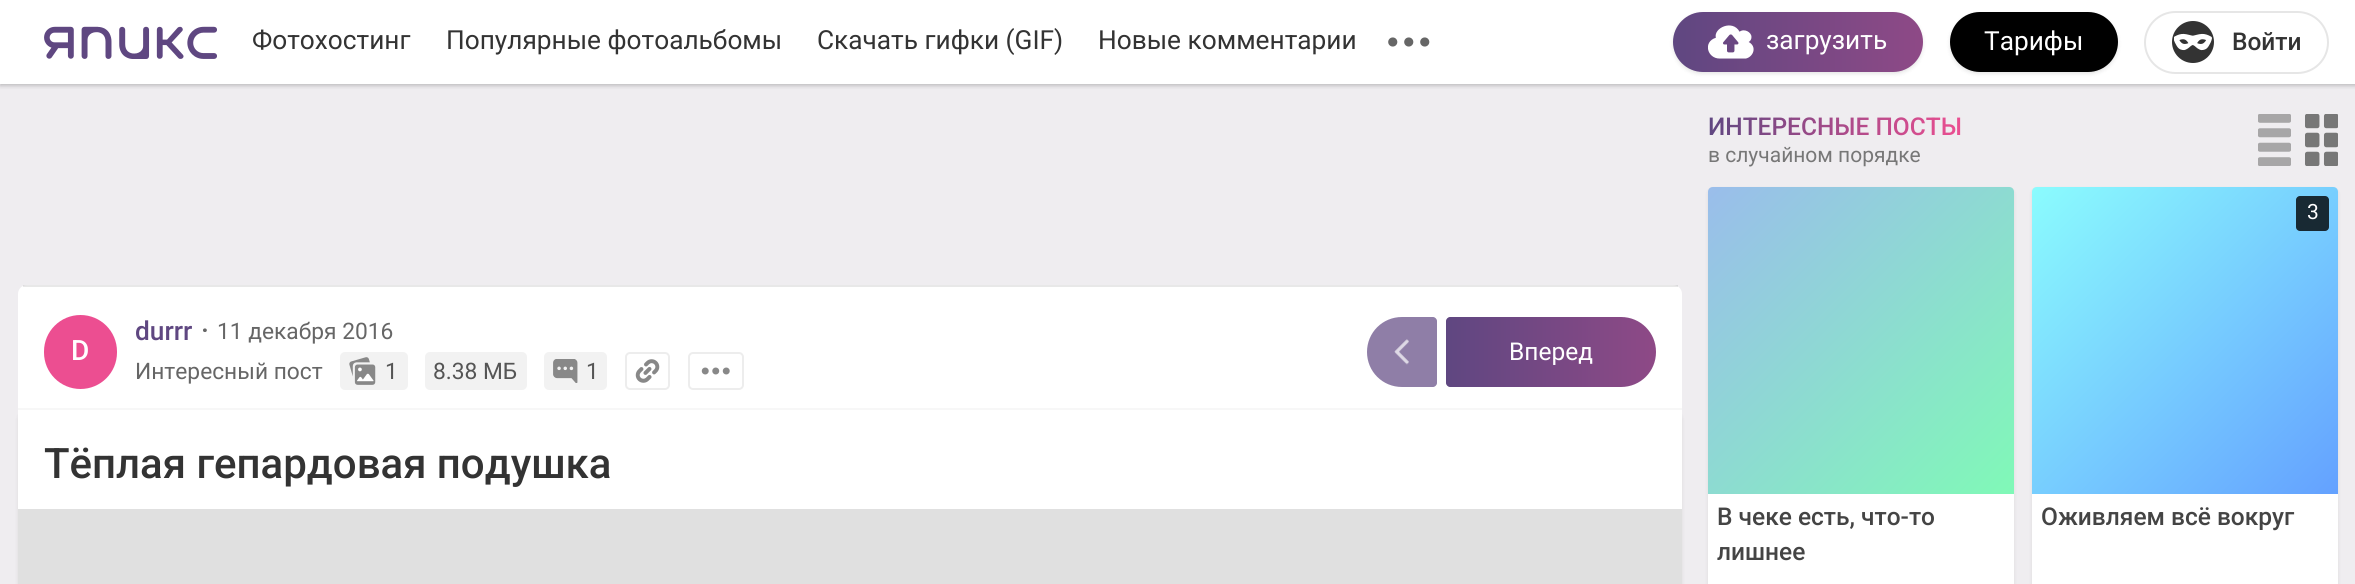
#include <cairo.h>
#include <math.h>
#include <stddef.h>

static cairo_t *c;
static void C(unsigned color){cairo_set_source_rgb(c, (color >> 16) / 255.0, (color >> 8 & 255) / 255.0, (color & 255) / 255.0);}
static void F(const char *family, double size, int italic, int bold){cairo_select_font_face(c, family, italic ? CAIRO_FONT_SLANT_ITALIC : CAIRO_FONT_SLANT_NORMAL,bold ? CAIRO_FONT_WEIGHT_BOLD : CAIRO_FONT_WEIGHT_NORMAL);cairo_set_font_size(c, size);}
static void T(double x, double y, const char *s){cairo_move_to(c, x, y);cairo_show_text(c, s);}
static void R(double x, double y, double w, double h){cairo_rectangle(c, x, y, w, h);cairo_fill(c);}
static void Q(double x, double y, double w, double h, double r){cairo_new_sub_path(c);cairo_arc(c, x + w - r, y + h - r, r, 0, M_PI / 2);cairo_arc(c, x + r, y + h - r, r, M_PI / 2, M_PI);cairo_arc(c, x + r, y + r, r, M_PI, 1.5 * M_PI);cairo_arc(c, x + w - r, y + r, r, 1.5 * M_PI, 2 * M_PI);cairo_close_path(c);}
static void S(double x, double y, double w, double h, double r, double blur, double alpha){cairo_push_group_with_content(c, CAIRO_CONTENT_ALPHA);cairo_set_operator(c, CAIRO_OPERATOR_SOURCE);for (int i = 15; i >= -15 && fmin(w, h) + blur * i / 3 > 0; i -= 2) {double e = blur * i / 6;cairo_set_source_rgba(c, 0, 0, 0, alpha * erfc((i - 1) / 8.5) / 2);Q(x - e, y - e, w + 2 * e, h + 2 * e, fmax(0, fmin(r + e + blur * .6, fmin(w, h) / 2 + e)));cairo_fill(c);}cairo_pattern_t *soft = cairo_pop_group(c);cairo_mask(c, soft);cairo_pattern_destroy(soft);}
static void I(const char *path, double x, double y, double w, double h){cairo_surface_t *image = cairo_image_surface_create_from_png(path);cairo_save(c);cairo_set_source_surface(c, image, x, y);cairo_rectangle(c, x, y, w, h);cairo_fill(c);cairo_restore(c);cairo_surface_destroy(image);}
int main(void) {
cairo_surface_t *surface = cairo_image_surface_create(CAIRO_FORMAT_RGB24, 2355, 584);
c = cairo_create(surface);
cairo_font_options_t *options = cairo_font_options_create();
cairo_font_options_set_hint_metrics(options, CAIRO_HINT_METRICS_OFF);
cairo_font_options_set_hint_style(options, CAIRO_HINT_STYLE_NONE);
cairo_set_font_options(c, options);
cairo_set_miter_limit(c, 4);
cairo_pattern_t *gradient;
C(0xefedf0);
cairo_paint(c);
C(0x000000);
S(0,2,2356,84,0,2,.2);
C(0xffffff);
R(0,0,2355,84);
I("1.png",44,26,173,33);
F("Roboto",26.25,0,0);
C(0x333333);
T(252,49,"Фотохостинг");
T(446,49,"Популярные фотоальбомы");
T(817,49,"Скачать гифки (GIF)");
T(1098,49,"Новые комментарии");
I("2.png",1388,37,42,10);
C(0x000000);
S(1673,14,250,60,30,2,.1);
gradient = cairo_pattern_create_linear(1673,42,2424,42);
cairo_pattern_add_color_stop_rgba(gradient,0,0.373,0.278,0.506,1);
cairo_pattern_add_color_stop_rgba(gradient,1,0.925,0.306,0.569,1);
cairo_set_source(c,gradient);
cairo_pattern_destroy(gradient);
Q(1673,12,250,60,30);
cairo_fill(c);
I("3.png",1708,25,46,34);
C(0xffffff);
T(1766,49,"загрузить");
C(0x000000);
S(1950,14,168,60,30,2,.1);
C(0x000000);
Q(1950,12,168,60,30);
cairo_fill(c);
C(0xffffff);
T(1984,50,"Тарифы");
Q(2145,12,183,61,30.5);
C(0xe6e6e6);
cairo_stroke(c);
C(0x333333);
cairo_arc(c,2193,42,21,0,2 * M_PI);
cairo_fill(c);
I("4.png",2174,33,38,18);
F("Roboto Medium",24.5,0,0);
T(2232,50,"Войти");
C(0xffffff);
cairo_new_path(c);
cairo_move_to(c,27,285);
cairo_line_to(c,1673,285);
cairo_curve_to(c,1678,285,1682,289,1682,294);
cairo_line_to(c,1682,296);
cairo_line_to(c,18,296);
cairo_line_to(c,18,294);
cairo_curve_to(c,18,289,22,285,27,285);
cairo_close_path(c);
cairo_fill(c);
cairo_set_source_rgba(c,0,0,0,0.09);
R(23,285,1655,2);
C(0x000000);
S(18,411,1664,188,9,2,.08);
C(0xffffff);
R(18,296,1664,112);
C(0xf7f7f7);
R(18,408,1664,2);
C(0xec4e91);
Q(44,315,73,74,36.5);
cairo_fill(c);
F("Roboto Medium",28,0,0);
C(0xffffff);
T(71,360,"D");
F("Roboto Medium",26.25,0,0);
C(0x5f4781);
T(135,340,"durrr");
F("Roboto Medium",28,0,0);
C(0x666666);
T(201,340,"·");
F("Roboto",22.75,0,0);
T(217,339,"11 декабря 2016");
T(135,379,"Интересный пост");
C(0xf2f2f2);
Q(340,352,68,38,5);
cairo_fill(c);
I("5.png",349,357,27,28);
C(0x555555);
T(385,379,"1");
C(0xf2f2f2);
Q(425,352,102,38,5);
cairo_fill(c);
C(0x555555);
T(433,379,"8.38 МБ");
C(0xf2f2f2);
Q(544,352,63,38,5);
cairo_fill(c);
I("6.png",553,359,25,24);
C(0x555555);
T(586,379,"1");
Q(626,353,43,36,4);
C(0xededed);
cairo_stroke(c);
I("7.png",635,359,25,24);
Q(689,353,54,36,4);
cairo_stroke(c);
I("8.png",701,367,29,8);
C(0x8f7ea7);
cairo_new_path(c);
cairo_move_to(c,1402,317);
cairo_line_to(c,1433,317);
cairo_curve_to(c,1435,317,1437,319,1437,321);
cairo_line_to(c,1437,383);
cairo_curve_to(c,1437,385,1435,387,1433,387);
cairo_line_to(c,1402,387);
cairo_curve_to(c,1382.5,387,1367,371.5,1367,352);
cairo_curve_to(c,1367,332.5,1382.5,317,1402,317);
cairo_close_path(c);
cairo_fill(c);
I("9.png",1394,339,15,26);
gradient = cairo_pattern_create_linear(1446,352,2076,352);
cairo_pattern_add_color_stop_rgba(gradient,0,0.373,0.278,0.506,1);
cairo_pattern_add_color_stop_rgba(gradient,1,0.925,0.306,0.569,1);
cairo_set_source(c,gradient);
cairo_pattern_destroy(gradient);
cairo_new_path(c);
cairo_move_to(c,1450,317);
cairo_line_to(c,1621,317);
cairo_curve_to(c,1640.5,317,1656,332.5,1656,352);
cairo_curve_to(c,1656,371.5,1640.5,387,1621,387);
cairo_line_to(c,1450,387);
cairo_curve_to(c,1448,387,1446,385,1446,383);
cairo_line_to(c,1446,321);
cairo_curve_to(c,1446,319,1448,317,1450,317);
cairo_close_path(c);
cairo_fill(c);
F("Roboto",24.5,0,0);
C(0xffffff);
T(1509,360,"Вперед");
R(18,410,1664,99);
F("Roboto Medium",42,0,0);
C(0x333333);
T(44,478,"Тёплая гепардовая подушка");
C(0xe0e0e0);
R(18,509,1664,75);
F("Roboto Medium",24.5,0,0);
gradient = cairo_pattern_create_linear(1708,126,1962,126);
cairo_pattern_add_color_stop_rgba(gradient,0,0.373,0.278,0.506,1);
cairo_pattern_add_color_stop_rgba(gradient,1,0.925,0.306,0.569,1);
cairo_set_source(c,gradient);
cairo_pattern_destroy(gradient);
T(1708,135,"ИНТЕРЕСНЫЕ ПОСТЫ");
F("Roboto",21,0,0);
C(0x777777);
T(1708,162,"в случайном порядке");
I("10.png",2258,114,33,52);
I("11.png",2305,114,33,52);
C(0x000000);
S(1708,189,306,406,5,2,.08);
gradient = cairo_pattern_create_linear(1708,187,2014,494);
cairo_pattern_add_color_stop_rgba(gradient,0,0.604,0.741,0.922,1);
cairo_pattern_add_color_stop_rgba(gradient,1,0.502,0.976,0.718,1);
cairo_set_source(c,gradient);
cairo_pattern_destroy(gradient);
cairo_new_path(c);
cairo_move_to(c,1713,187);
cairo_line_to(c,2009,187);
cairo_curve_to(c,2012,187,2014,189,2014,192);
cairo_line_to(c,2014,494);
cairo_line_to(c,1708,494);
cairo_line_to(c,1708,192);
cairo_curve_to(c,1708,189,1710,187,1713,187);
cairo_close_path(c);
cairo_fill(c);
C(0xffffff);
R(1708,494,306,90);
F("Roboto Medium",24.5,0,0);
C(0x444444);
T(1717,525,"В чеке есть, что-то");
T(1717,560,"лишнее");
C(0x000000);
S(2032,189,306,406,5,2,.08);
gradient = cairo_pattern_create_linear(2032,187,2338,494);
cairo_pattern_add_color_stop_rgba(gradient,0,0.545,0.988,0.996,1);
cairo_pattern_add_color_stop_rgba(gradient,1,0.392,0.631,1,1);
cairo_set_source(c,gradient);
cairo_pattern_destroy(gradient);
cairo_new_path(c);
cairo_move_to(c,2037,187);
cairo_line_to(c,2333,187);
cairo_curve_to(c,2336,187,2338,189,2338,192);
cairo_line_to(c,2338,494);
cairo_line_to(c,2032,494);
cairo_line_to(c,2032,192);
cairo_curve_to(c,2032,189,2034,187,2037,187);
cairo_close_path(c);
cairo_fill(c);
cairo_set_source_rgba(c,0,0,0,0.8);
Q(2296,196,33,35,4);
cairo_fill(c);
F("Roboto",21,0,0);
C(0xffffff);
T(2307,219,"3");
R(2032,494,306,90);
F("Roboto Medium",24.5,0,0);
C(0x444444);
T(2041,525,"Оживляем всё вокруг");
cairo_surface_write_to_png(surface, "o.png");
cairo_font_options_destroy(options);
cairo_destroy(c);
cairo_surface_destroy(surface);
return 0;
}
